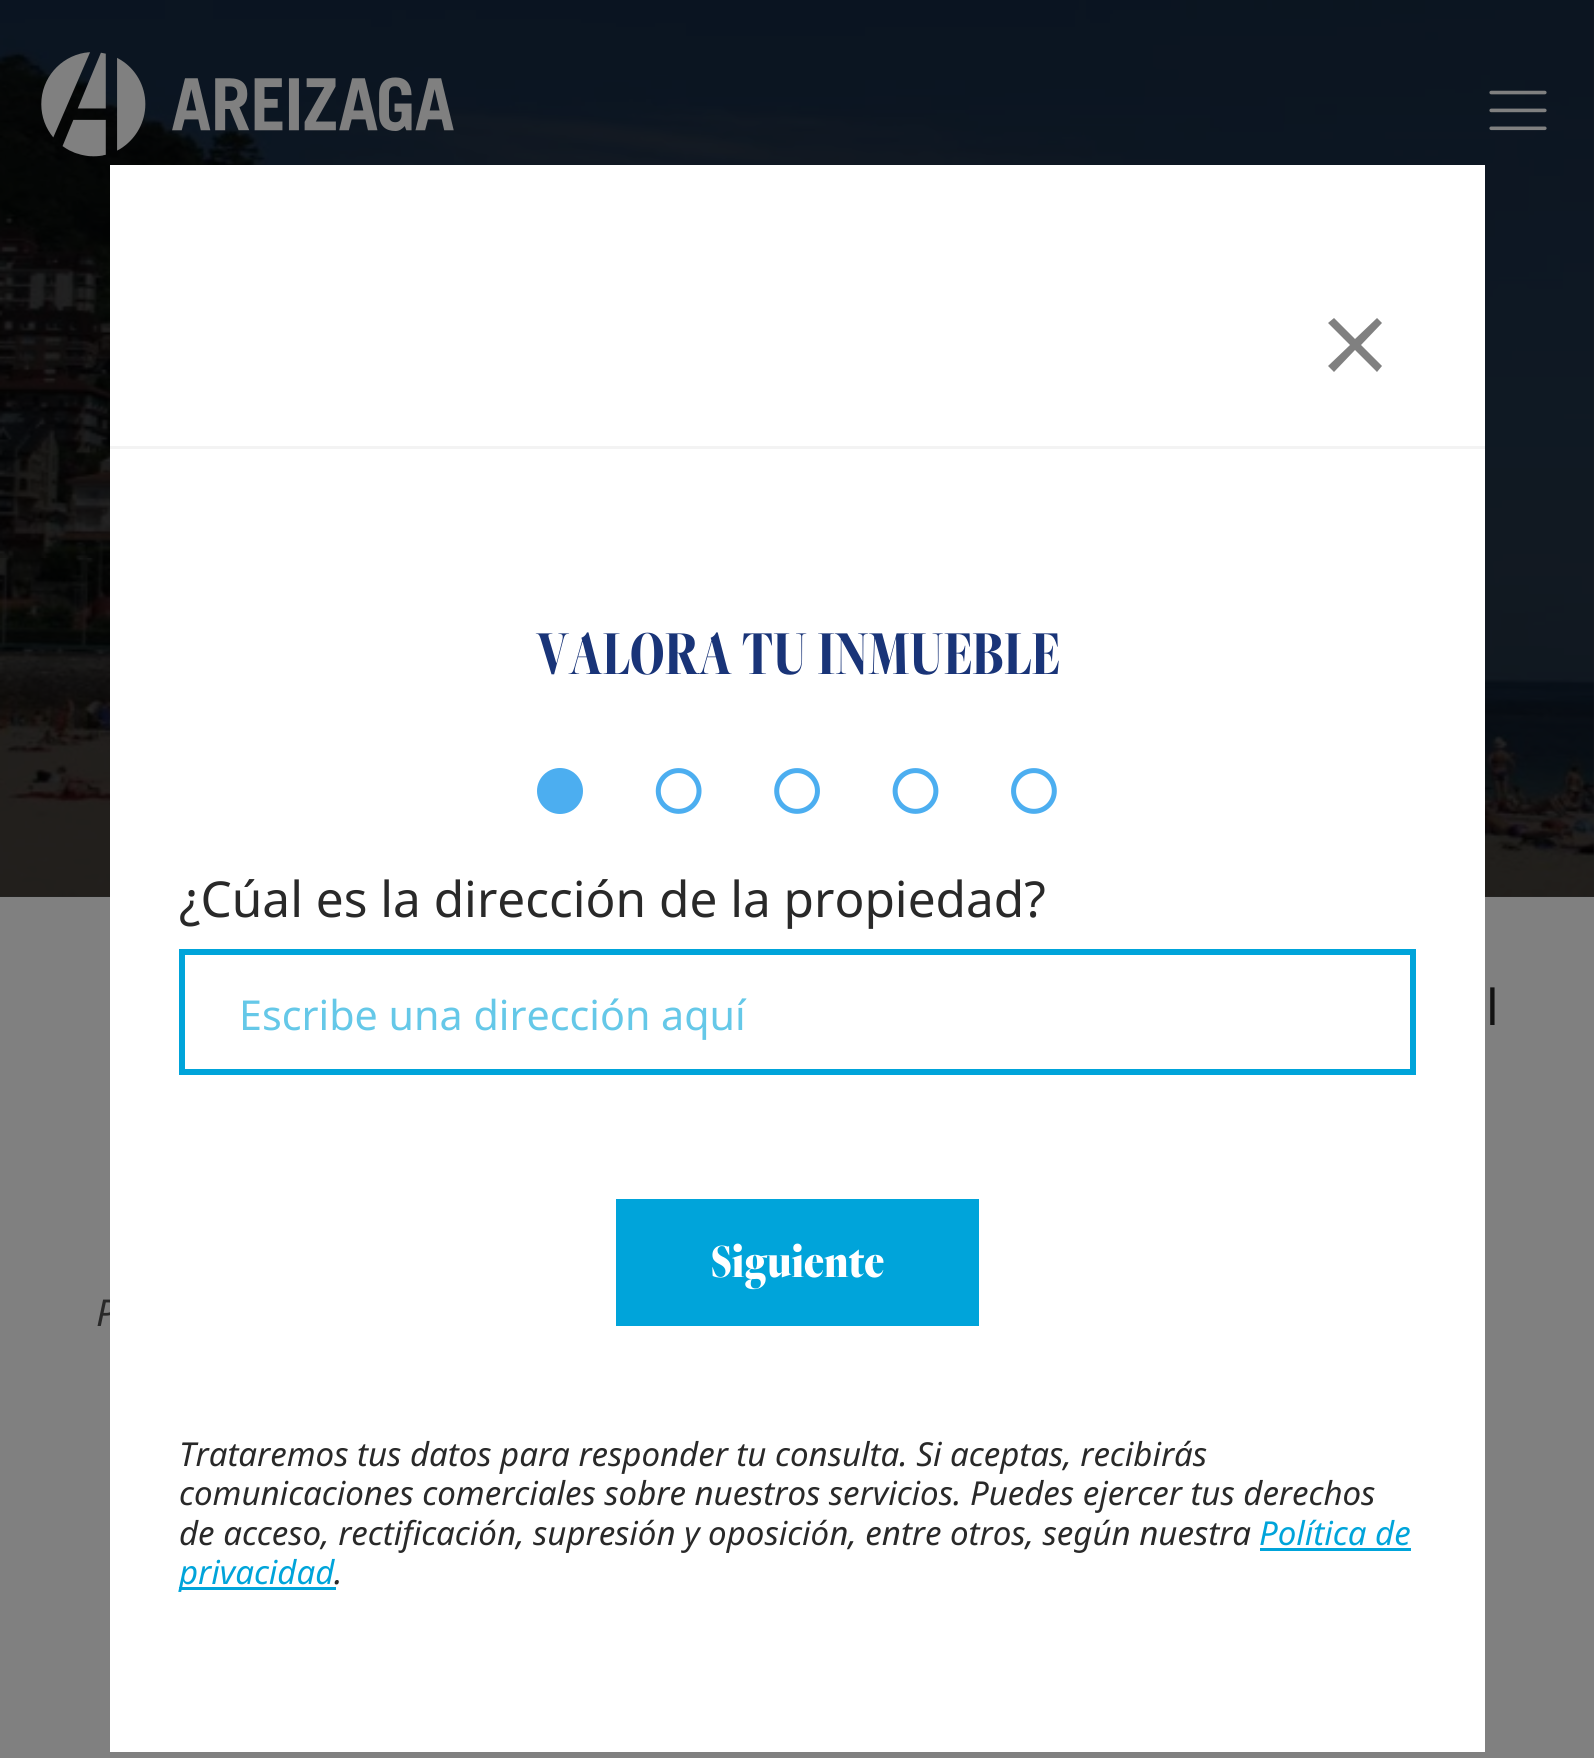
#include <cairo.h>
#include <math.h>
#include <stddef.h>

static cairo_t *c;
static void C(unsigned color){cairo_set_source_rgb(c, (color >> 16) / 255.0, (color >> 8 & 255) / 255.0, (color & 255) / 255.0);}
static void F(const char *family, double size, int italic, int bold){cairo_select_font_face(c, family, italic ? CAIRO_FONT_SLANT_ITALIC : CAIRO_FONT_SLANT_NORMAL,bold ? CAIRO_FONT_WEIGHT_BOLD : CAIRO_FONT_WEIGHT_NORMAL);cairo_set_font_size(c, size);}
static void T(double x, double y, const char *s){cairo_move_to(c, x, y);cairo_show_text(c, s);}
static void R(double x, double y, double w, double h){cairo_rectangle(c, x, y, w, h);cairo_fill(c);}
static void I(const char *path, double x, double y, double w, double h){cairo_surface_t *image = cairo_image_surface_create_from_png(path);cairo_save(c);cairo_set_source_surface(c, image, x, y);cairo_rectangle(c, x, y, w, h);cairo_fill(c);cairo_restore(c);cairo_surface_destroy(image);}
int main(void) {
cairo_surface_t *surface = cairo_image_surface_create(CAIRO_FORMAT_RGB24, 1594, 1758);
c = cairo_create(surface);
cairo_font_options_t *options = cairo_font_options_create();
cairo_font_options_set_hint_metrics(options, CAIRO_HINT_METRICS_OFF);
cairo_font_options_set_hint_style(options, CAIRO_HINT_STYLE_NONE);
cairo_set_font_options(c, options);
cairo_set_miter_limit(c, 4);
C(0x808080);
cairo_paint(c);
C(0x252525);
R(0,0,1594,897);
I("4.png",0,0,1594,897);
I("1.png",41,52,413,105);
I("2.png",1489,90,58,41);
F("Noto Sans",37,1,0);
C(0x292929);
T(96,1326,"P");
C(0xffffff);
R(110,165,1375,1587);
C(0xf3f3f3);
R(110,446,1375,3);
C(0x808080);
cairo_new_path(c);
cairo_move_to(c,1382,323);
cairo_line_to(c,1377,318);
cairo_line_to(c,1355,339);
cairo_line_to(c,1334,318);
cairo_line_to(c,1328,323);
cairo_line_to(c,1350,345);
cairo_line_to(c,1328,366);
cairo_line_to(c,1334,372);
cairo_line_to(c,1355,350);
cairo_line_to(c,1377,372);
cairo_line_to(c,1382,366);
cairo_line_to(c,1361,345);
cairo_close_path(c);
cairo_fill(c);
F("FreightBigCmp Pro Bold",65,0,1);
C(0x193478);
T(536,674,"VALORA TU INMUEBLE");
I("3.png",537,768,520,46);
F("Noto Sans",49.5,0,0);
C(0x292929);
T(179,917,"¿Cúal es la dirección de la propiedad?");
cairo_rectangle(c,182,952,1231,120);
C(0x00a4da);
cairo_set_line_width(c,6);
cairo_stroke(c);
F("Noto Sans",41.25,0,0);
C(0x65c8e8);
T(239,1030,"Escribe una dirección aquí");
C(0x00a4da);
R(616,1199,363,127);
F("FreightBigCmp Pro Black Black",49.5,0,0);
C(0xffffff);
T(711,1277,"Siguiente");
F("Noto Sans",33,1,0);
C(0x292929);
T(179,1466,"Trataremos tus datos para responder tu consulta. Si aceptas, recibirás");
T(179,1505,"comunicaciones comerciales sobre nuestros servicios. Puedes ejercer tus derechos");
T(179,1545,"de acceso, rectificación, supresión y oposición, entre otros, según nuestra");
C(0x00a4da);
T(1259,1545,"Política de");
R(1260,1548,151,3);
R(179,1587,157,3);
T(179,1584,"privacidad");
C(0x292929);
T(334,1584,".");
F("Noto Sans",49.5,0,0);
C(0x131313);
T(1486,1025,"l");
cairo_surface_write_to_png(surface, "o.png");
cairo_font_options_destroy(options);
cairo_destroy(c);
cairo_surface_destroy(surface);
return 0;
}
